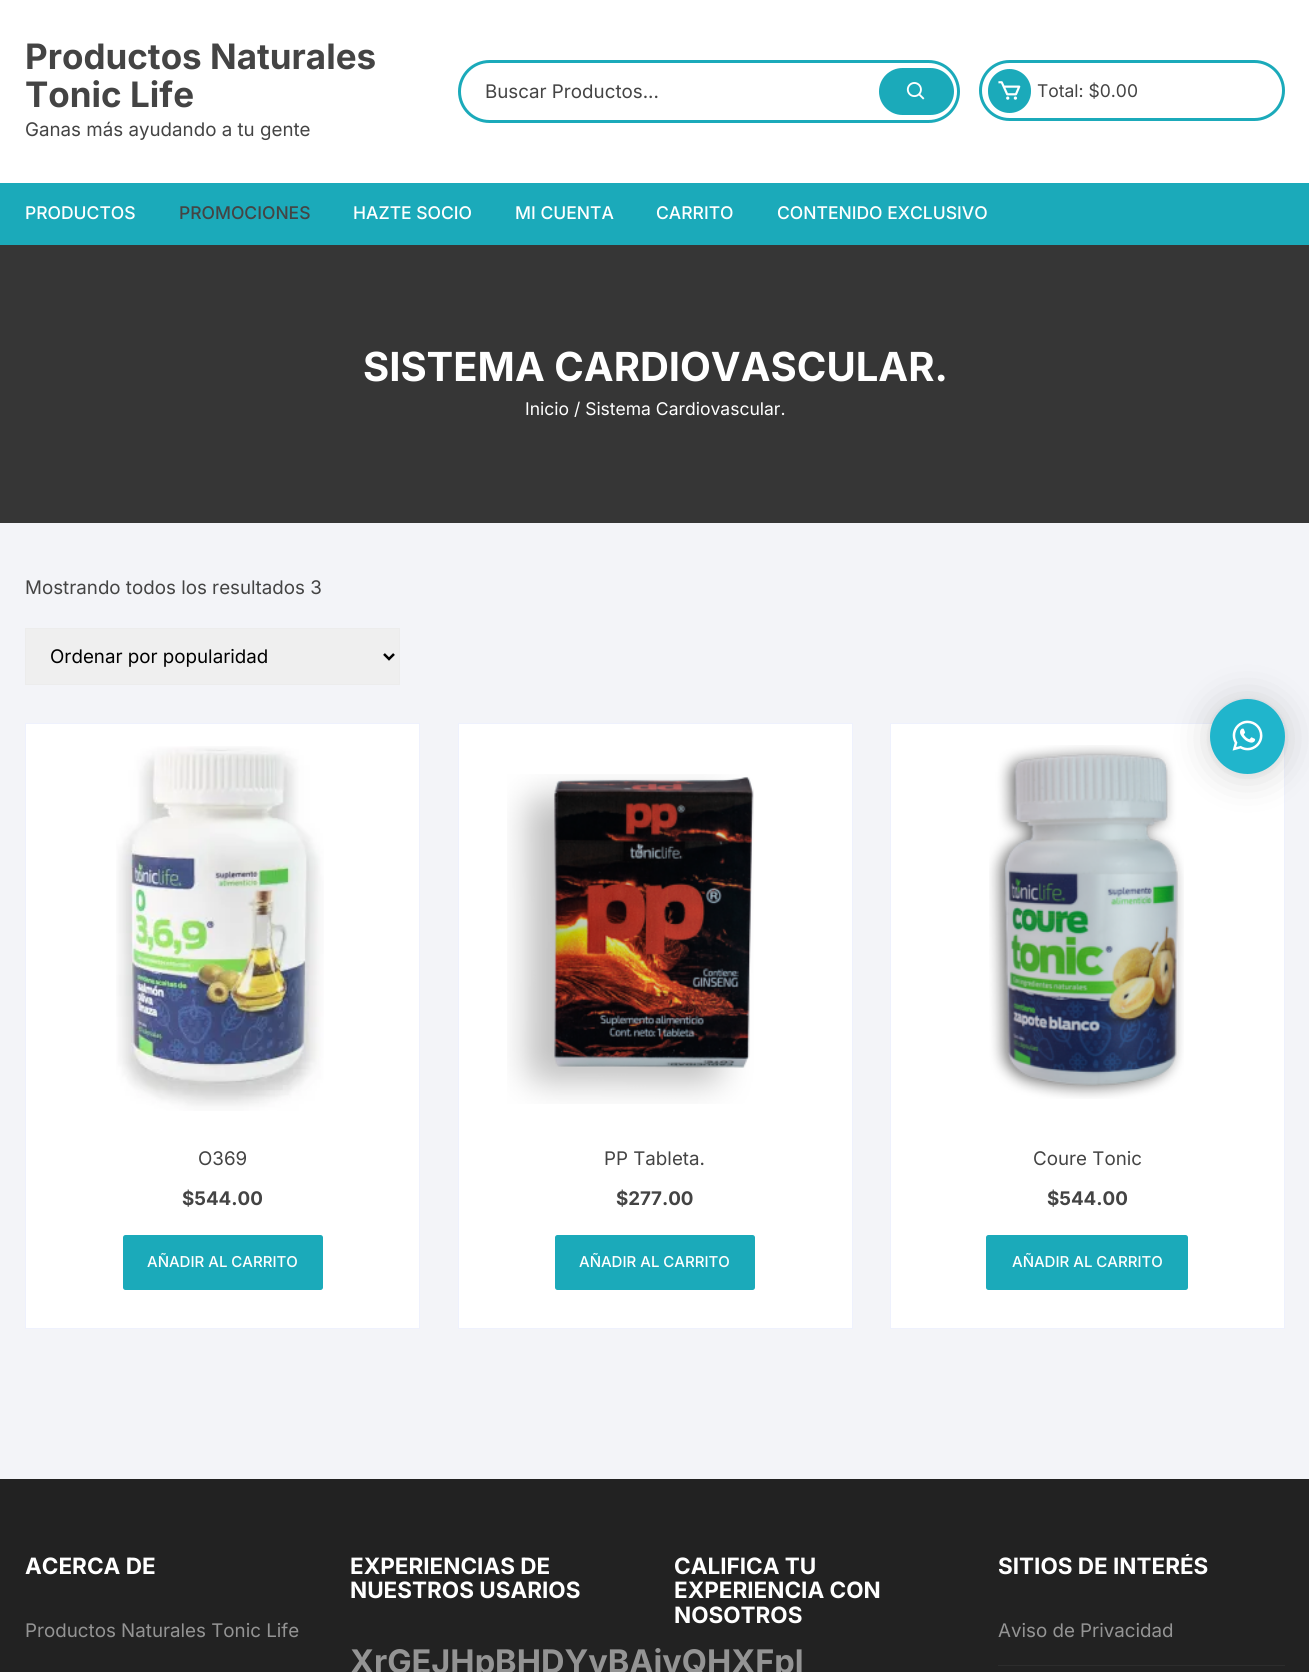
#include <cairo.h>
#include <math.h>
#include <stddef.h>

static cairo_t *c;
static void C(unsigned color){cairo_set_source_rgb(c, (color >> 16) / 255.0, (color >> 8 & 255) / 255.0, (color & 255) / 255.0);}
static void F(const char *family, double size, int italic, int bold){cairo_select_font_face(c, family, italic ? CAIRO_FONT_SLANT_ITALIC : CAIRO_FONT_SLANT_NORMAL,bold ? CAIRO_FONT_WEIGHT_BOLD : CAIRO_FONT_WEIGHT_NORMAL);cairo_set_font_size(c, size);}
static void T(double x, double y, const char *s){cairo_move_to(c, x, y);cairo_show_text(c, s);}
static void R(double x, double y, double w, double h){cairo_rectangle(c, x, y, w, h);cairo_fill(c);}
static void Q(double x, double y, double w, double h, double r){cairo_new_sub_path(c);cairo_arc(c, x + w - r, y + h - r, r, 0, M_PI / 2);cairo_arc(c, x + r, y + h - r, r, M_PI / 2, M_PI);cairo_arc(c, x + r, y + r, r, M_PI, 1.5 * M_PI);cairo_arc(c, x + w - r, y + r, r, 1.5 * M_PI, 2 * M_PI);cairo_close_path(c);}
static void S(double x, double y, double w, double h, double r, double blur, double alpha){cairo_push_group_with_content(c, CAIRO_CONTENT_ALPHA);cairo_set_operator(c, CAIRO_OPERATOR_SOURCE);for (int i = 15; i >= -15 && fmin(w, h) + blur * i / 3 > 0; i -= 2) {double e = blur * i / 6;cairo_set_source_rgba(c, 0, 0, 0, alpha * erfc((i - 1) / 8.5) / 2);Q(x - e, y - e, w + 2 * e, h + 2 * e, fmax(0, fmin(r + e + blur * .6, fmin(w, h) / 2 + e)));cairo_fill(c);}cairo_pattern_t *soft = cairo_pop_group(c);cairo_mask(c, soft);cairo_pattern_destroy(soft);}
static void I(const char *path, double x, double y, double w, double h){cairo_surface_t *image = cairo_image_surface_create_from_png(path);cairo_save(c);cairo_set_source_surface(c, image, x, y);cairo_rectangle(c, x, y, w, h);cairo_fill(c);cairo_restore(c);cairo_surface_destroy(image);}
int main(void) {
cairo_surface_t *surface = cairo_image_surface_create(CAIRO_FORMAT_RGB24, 1309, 1672);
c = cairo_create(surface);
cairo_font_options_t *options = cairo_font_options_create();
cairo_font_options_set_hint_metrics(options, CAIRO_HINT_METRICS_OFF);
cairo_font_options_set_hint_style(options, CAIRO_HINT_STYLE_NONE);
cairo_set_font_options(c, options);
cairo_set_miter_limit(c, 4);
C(0xf3f4f8);
cairo_paint(c);
C(0xffffff);
R(0,0,1309,183);
F("Inter",35,0,1);
C(0x444444);
T(25,69,"Productos Naturales");
T(25,107,"Tonic Life");
F("Inter",18.75,0,0);
T(25,136,"Ganas más ayudando a tu gente");
Q(459.5,61.5,499,60,30);
C(0x1baaba);
cairo_set_line_width(c,3);
cairo_stroke(c);
C(0x444444);
T(485,98,"Buscar Productos...");
C(0x1baaba);
Q(879,68,75,47,23.5);
cairo_fill(c);
I("1.png",906,82,19,18);
Q(980.5,61.5,303,58,29);
cairo_stroke(c);
Q(988,69,43,44,21.5);
cairo_fill(c);
I("2.png",998,81,23,19);
F("Inter",17.5,0,0);
C(0x444444);
T(1037,97,"Total: $0.00");
C(0x1baaba);
R(0,183,1309,62);
F("Inter Medium",17.5,0,0);
C(0xffffff);
T(25,219,"PRODUCTOS");
C(0x444444);
T(179,219,"PROMOCIONES");
C(0xffffff);
T(353,219,"HAZTE SOCIO");
T(515,219,"MI CUENTA");
T(656,219,"CARRITO");
T(777,219,"CONTENIDO EXCLUSIVO");
C(0x363636);
R(0,245,1309,278);
F("Inter",40,0,1);
C(0xffffff);
T(363,381,"SISTEMA CARDIOVASCULAR.");
F("Inter",17.5,0,0);
T(525,415,"Inicio / Sistema Cardiovascular.");
F("Inter",18.75,0,0);
C(0x444444);
T(25,594,"Mostrando todos los resultados 3");
C(0xefefef);
cairo_rectangle(c,25.5,628.5,374,56);
cairo_fill_preserve(c);
C(0xececec);
cairo_set_line_width(c,1);
cairo_stroke(c);
cairo_new_path(c);
cairo_move_to(c,384,654);
cairo_line_to(c,389,659);
cairo_line_to(c,394,654);
C(0x000000);
cairo_set_line_width(c,2.5);
cairo_stroke(c);
T(50,663,"Ordenar por popularidad");
C(0xffffff);
cairo_rectangle(c,25.5,723.5,394,605);
cairo_fill_preserve(c);
C(0xeef1fd);
cairo_set_line_width(c,1);
cairo_stroke(c);
I("3.png",116,746,208,365);
C(0x444444);
T(198,1165,"O369");
F("Inter",18.75,0,1);
T(182,1205,"$544.00");
C(0x1baaba);
Q(123,1235,200,55,2.5);
cairo_fill(c);
F("Inter Medium",15,0,0);
C(0xffffff);
T(147,1267,"AÑADIR AL CARRITO");
cairo_rectangle(c,458.5,723.5,394,605);
cairo_fill_preserve(c);
C(0xeef1fd);
cairo_stroke(c);
I("4.png",507,774,247,330);
F("Inter",18.75,0,0);
C(0x444444);
T(604,1165,"PP Tableta.");
F("Inter",18.75,0,1);
T(616,1205,"$277.00");
C(0x1baaba);
Q(555,1235,200,55,2.5);
cairo_fill(c);
F("Inter Medium",15,0,0);
C(0xffffff);
T(579,1267,"AÑADIR AL CARRITO");
cairo_rectangle(c,890.5,723.5,394,605);
cairo_fill_preserve(c);
C(0xeef1fd);
cairo_stroke(c);
I("5.png",989,745,195,354);
F("Inter",18.75,0,0);
C(0x444444);
T(1033,1165,"Coure Tonic");
F("Inter",18.75,0,1);
T(1047,1205,"$544.00");
C(0x1baaba);
Q(986,1235,202,55,2.5);
cairo_fill(c);
F("Inter Medium",15,0,0);
C(0xffffff);
T(1012,1267,"AÑADIR AL CARRITO");
C(0x222222);
R(0,1479,1309,193);
F("Inter",22.5,0,1);
C(0xffffff);
T(25,1574,"ACERCA DE");
F("Inter",18.75,0,0);
C(0x949494);
T(25,1637,"Productos Naturales Tonic Life");
F("Inter",22.5,0,1);
C(0xffffff);
T(350,1574,"EXPERIENCIAS DE");
T(350,1598,"NUESTROS USARIOS");
F("Inter",32.5,0,1);
C(0x949494);
T(350,1673,"XrGEJHpBHDYyBAivQHXFpl");
cairo_save(c);
cairo_rectangle(c,998,1554,287,25);
cairo_clip(c);
F("Inter",22.5,0,1);
C(0xffffff);
T(998,1574,"SITIOS DE INTERÉS");
cairo_restore(c);
C(0x2d2d2d);
R(998,1665,287,1);
F("Inter",18.75,0,0);
C(0x949494);
T(998,1637,"Aviso de Privacidad");
F("Inter",22.5,0,1);
C(0xffffff);
T(674,1574,"CALIFICA TU");
T(674,1598,"EXPERIENCIA CON");
T(674,1623,"NOSOTROS");
C(0x000000);
S(1210,701,75,75,37.5,20,.16);
S(1210,700,75,75,37.5,4,.06);
C(0x20b5cc);
cairo_arc(c,1247.5,736.5,37.5,0,2 * M_PI);
cairo_fill(c);
I("6.png",1232,720,31,31);
cairo_surface_write_to_png(surface, "o.png");
cairo_font_options_destroy(options);
cairo_destroy(c);
cairo_surface_destroy(surface);
return 0;
}
